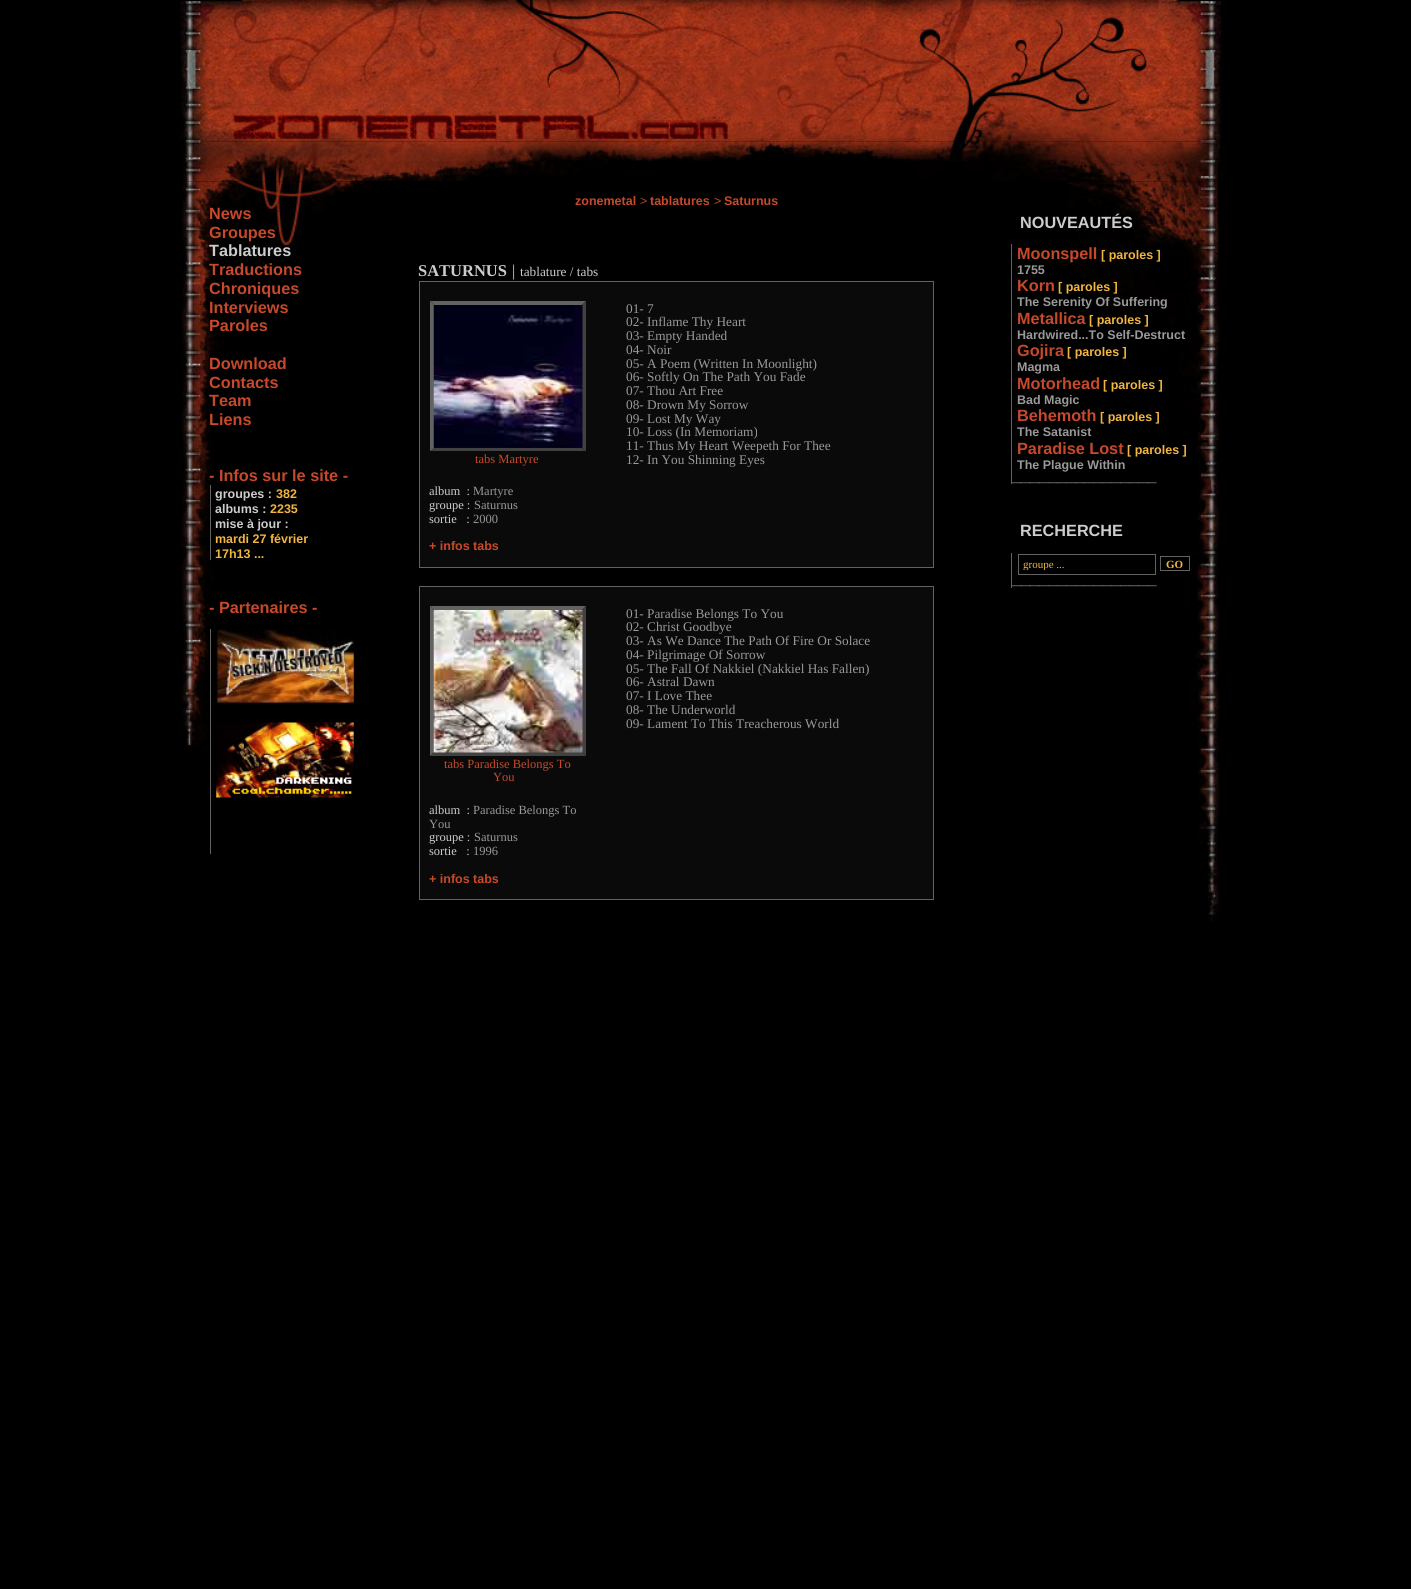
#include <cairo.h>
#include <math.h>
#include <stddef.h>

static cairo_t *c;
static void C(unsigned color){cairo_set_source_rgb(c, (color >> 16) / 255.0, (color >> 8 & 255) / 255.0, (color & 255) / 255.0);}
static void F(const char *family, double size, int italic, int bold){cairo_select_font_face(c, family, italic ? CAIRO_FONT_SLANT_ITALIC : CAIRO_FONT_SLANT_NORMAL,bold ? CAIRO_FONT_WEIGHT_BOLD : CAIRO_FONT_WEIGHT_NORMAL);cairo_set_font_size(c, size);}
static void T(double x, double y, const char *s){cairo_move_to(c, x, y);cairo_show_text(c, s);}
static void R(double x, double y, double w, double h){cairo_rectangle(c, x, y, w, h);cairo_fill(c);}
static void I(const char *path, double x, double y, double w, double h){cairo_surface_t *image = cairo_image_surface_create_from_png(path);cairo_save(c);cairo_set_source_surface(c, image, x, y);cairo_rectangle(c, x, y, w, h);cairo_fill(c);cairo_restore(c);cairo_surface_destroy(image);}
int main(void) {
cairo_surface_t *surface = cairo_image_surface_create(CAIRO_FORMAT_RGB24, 1411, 1589);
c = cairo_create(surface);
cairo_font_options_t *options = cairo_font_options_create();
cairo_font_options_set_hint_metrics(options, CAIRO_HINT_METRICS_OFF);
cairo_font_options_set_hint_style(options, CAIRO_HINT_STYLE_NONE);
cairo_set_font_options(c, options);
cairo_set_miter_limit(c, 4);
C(0x000000);
cairo_paint(c);
I("1.png",180,0,1045,142);
I("2.png",183,141,1042,40);
I("3.png",181,181,192,566);
I("4.png",1067,181,153,740);
F("Liberation Sans",16.25,0,1);
C(0xc7492a);
T(209,219,"News");
T(209,238,"Groupes");
C(0xcccccc);
T(209,256,"Tablatures");
C(0xc7492a);
T(209,275,"Traductions");
T(209,294,"Chroniques");
T(209,313,"Interviews");
T(209,331,"Paroles");
T(209,369,"Download");
T(209,388,"Contacts");
T(209,406,"Team");
T(209,425,"Liens");
T(209,481,"- Infos sur le site -");
C(0x626262);
R(210,485,1,75);
F("Liberation Sans",12.5,0,1);
C(0xcccccc);
T(215,498,"groupes :");
C(0xf1b540);
T(276,498,"382");
C(0xcccccc);
T(215,513,"albums :");
C(0xf1b540);
T(270,513,"2235");
C(0xcccccc);
T(215,528,"mise à jour :");
C(0xf1b540);
T(215,543,"mardi 27 février");
T(215,558,"17h13 ...");
F("Liberation Sans",16.25,0,1);
C(0xc7492a);
T(209,613,"- Partenaires -");
C(0x626262);
R(210,629,1,225);
I("5.png",216,629,139,75);
I("6.png",216,722,138,76);
F("Liberation Sans",12.5,0,1);
C(0xc7492a);
T(575,205,"zonemetal");
F("Liberation Sans",12.5,0,0);
C(0xb24124);
T(640,205,">");
F("Liberation Sans",12.5,0,1);
C(0xc7492a);
T(650,205,"tablatures");
F("Liberation Sans",12.5,0,0);
T(714,205,">");
F("Liberation Sans",12.5,0,1);
T(724,205,"Saturnus");
F("Liberation Serif",16.5,0,1);
C(0xcccccc);
T(418,276,"SATURNUS");
F("Liberation Serif",16.5,0,0);
T(512,276,"|");
F("Liberation Serif",13.3,0,0);
T(520,276,"tablature / tabs");
C(0x0b0a0a);
cairo_rectangle(c,419.5,281.5,514,286);
cairo_fill_preserve(c);
C(0x626262);
cairo_set_line_width(c,1);
cairo_stroke(c);
C(0x999999);
T(626,313,"01- 7");
T(626,326,"02- Inflame Thy Heart");
T(626,340,"03- Empty Handed");
T(626,354,"04- Noir");
T(626,368,"05- A Poem (Written In Moonlight)");
T(626,381,"06- Softly On The Path You Fade");
T(626,395,"07- Thou Art Free");
T(626,409,"08- Drown My Sorrow");
T(626,423,"09- Lost My Way");
T(626,436,"10- Loss (In Memoriam)");
T(626,450,"11- Thus My Heart Weepeth For Thee");
T(626,464,"12- In You Shinning Eyes");
C(0x626262);
cairo_new_path(c);
cairo_move_to(c,430,301);
cairo_line_to(c,586,301);
cairo_line_to(c,582,305);
cairo_line_to(c,434,305);
cairo_close_path(c);
cairo_fill(c);
C(0x414141);
cairo_new_path(c);
cairo_move_to(c,586,301);
cairo_line_to(c,586,451);
cairo_line_to(c,582,448);
cairo_line_to(c,582,305);
cairo_close_path(c);
cairo_fill(c);
cairo_new_path(c);
cairo_move_to(c,586,451);
cairo_line_to(c,430,451);
cairo_line_to(c,434,448);
cairo_line_to(c,582,448);
cairo_close_path(c);
cairo_fill(c);
C(0x626262);
cairo_new_path(c);
cairo_move_to(c,430,451);
cairo_line_to(c,430,301);
cairo_line_to(c,434,305);
cairo_line_to(c,434,448);
cairo_close_path(c);
cairo_fill(c);
I("7.png",433,305,150,143);
F("Liberation Serif",12.5,0,0);
C(0xc7492a);
T(475,463,"tabs Martyre");
C(0xcccccc);
T(429,495,"album  :");
C(0x999999);
T(473,495,"Martyre");
C(0xcccccc);
T(429,509,"groupe :");
C(0x999999);
T(474,509,"Saturnus");
C(0xcccccc);
T(429,523,"sortie   :");
C(0x999999);
T(473,523,"2000");
F("Liberation Sans",12.5,0,1);
C(0xc7492a);
T(429,550,"+ infos tabs");
C(0x0b0a0a);
cairo_rectangle(c,419.5,586.5,514,313);
cairo_fill_preserve(c);
C(0x626262);
cairo_stroke(c);
F("Liberation Serif",13.3,0,0);
C(0x999999);
T(626,618,"01- Paradise Belongs To You");
T(626,631,"02- Christ Goodbye");
T(626,645,"03- As We Dance The Path Of Fire Or Solace");
T(626,659,"04- Pilgrimage Of Sorrow");
T(626,673,"05- The Fall Of Nakkiel (Nakkiel Has Fallen)");
T(626,686,"06- Astral Dawn");
T(626,700,"07- I Love Thee");
T(626,714,"08- The Underworld");
T(626,728,"09- Lament To This Treacherous World");
C(0x626262);
cairo_new_path(c);
cairo_move_to(c,430,606);
cairo_line_to(c,586,606);
cairo_line_to(c,582,610);
cairo_line_to(c,434,610);
cairo_close_path(c);
cairo_fill(c);
C(0x414141);
cairo_new_path(c);
cairo_move_to(c,586,606);
cairo_line_to(c,586,756);
cairo_line_to(c,582,752);
cairo_line_to(c,582,610);
cairo_close_path(c);
cairo_fill(c);
cairo_new_path(c);
cairo_move_to(c,586,756);
cairo_line_to(c,430,756);
cairo_line_to(c,434,752);
cairo_line_to(c,582,752);
cairo_close_path(c);
cairo_fill(c);
C(0x626262);
cairo_new_path(c);
cairo_move_to(c,430,756);
cairo_line_to(c,430,606);
cairo_line_to(c,434,610);
cairo_line_to(c,434,752);
cairo_close_path(c);
cairo_fill(c);
I("8.png",433,610,150,143);
F("Liberation Serif",12.5,0,0);
C(0xc7492a);
T(444,768,"tabs Paradise Belongs To");
T(493,781,"You");
C(0xcccccc);
T(429,814,"album  :");
C(0x999999);
T(473,814,"Paradise Belongs To");
T(429,828,"You");
C(0xcccccc);
T(429,841,"groupe :");
C(0x999999);
T(474,841,"Saturnus");
C(0xcccccc);
T(429,855,"sortie   :");
C(0x999999);
T(473,855,"1996");
F("Liberation Sans",12.5,0,1);
C(0xc7492a);
T(429,883,"+ infos tabs");
F("Liberation Sans",16.25,0,1);
C(0xcccccc);
T(1020,228,"NOUVEAUTÉS");
C(0x626262);
R(1011,244,1,240);
C(0xc7492a);
T(1017,259,"Moonspell");
F("Liberation Sans",12.5,0,1);
C(0xf1b540);
T(1101,259,"[ paroles ]");
C(0x999999);
T(1017,274,"1755");
F("Liberation Sans",16.25,0,1);
C(0xc7492a);
T(1017,291,"Korn");
F("Liberation Sans",12.5,0,1);
C(0xf1b540);
T(1058,291,"[ paroles ]");
C(0x999999);
T(1017,306,"The Serenity Of Suffering");
F("Liberation Sans",16.25,0,1);
C(0xc7492a);
T(1017,324,"Metallica");
F("Liberation Sans",12.5,0,1);
C(0xf1b540);
T(1089,324,"[ paroles ]");
C(0x999999);
T(1017,339,"Hardwired...To Self-Destruct");
F("Liberation Sans",16.25,0,1);
C(0xc7492a);
T(1017,356,"Gojira");
F("Liberation Sans",12.5,0,1);
C(0xf1b540);
T(1067,356,"[ paroles ]");
C(0x999999);
T(1017,371,"Magma");
F("Liberation Sans",16.25,0,1);
C(0xc7492a);
T(1017,389,"Motorhead");
F("Liberation Sans",12.5,0,1);
C(0xf1b540);
T(1103,389,"[ paroles ]");
C(0x999999);
T(1017,404,"Bad Magic");
F("Liberation Sans",16.25,0,1);
C(0xc7492a);
T(1017,421,"Behemoth");
F("Liberation Sans",12.5,0,1);
C(0xf1b540);
T(1100,421,"[ paroles ]");
C(0x999999);
T(1017,436,"The Satanist");
F("Liberation Sans",16.25,0,1);
C(0xc7492a);
T(1017,454,"Paradise Lost");
F("Liberation Sans",12.5,0,1);
C(0xf1b540);
T(1127,454,"[ paroles ]");
C(0x999999);
T(1017,469,"The Plague Within");
F("Liberation Sans",16.25,0,0);
C(0x626262);
T(1012,480,"________________");
F("Liberation Sans",16.25,0,1);
C(0xcccccc);
T(1020,536,"RECHERCHE");
C(0x626262);
R(1011,553,1,35);
cairo_rectangle(c,1018.5,554.5,137,20);
cairo_stroke(c);
cairo_save(c);
cairo_rectangle(c,1021,558,132,12);
cairo_clip(c);
F("Liberation Serif",11,0,0);
C(0xf1b540);
T(1023,568,"groupe ...");
cairo_restore(c);
cairo_rectangle(c,1160.5,556.5,29,14);
cairo_stroke(c);
F("Liberation Serif",11,0,1);
C(0xf1b540);
T(1166,568,"GO");
F("Liberation Sans",16.25,0,0);
C(0x626262);
T(1012,583,"________________");
cairo_surface_write_to_png(surface, "o.png");
cairo_font_options_destroy(options);
cairo_destroy(c);
cairo_surface_destroy(surface);
return 0;
}
